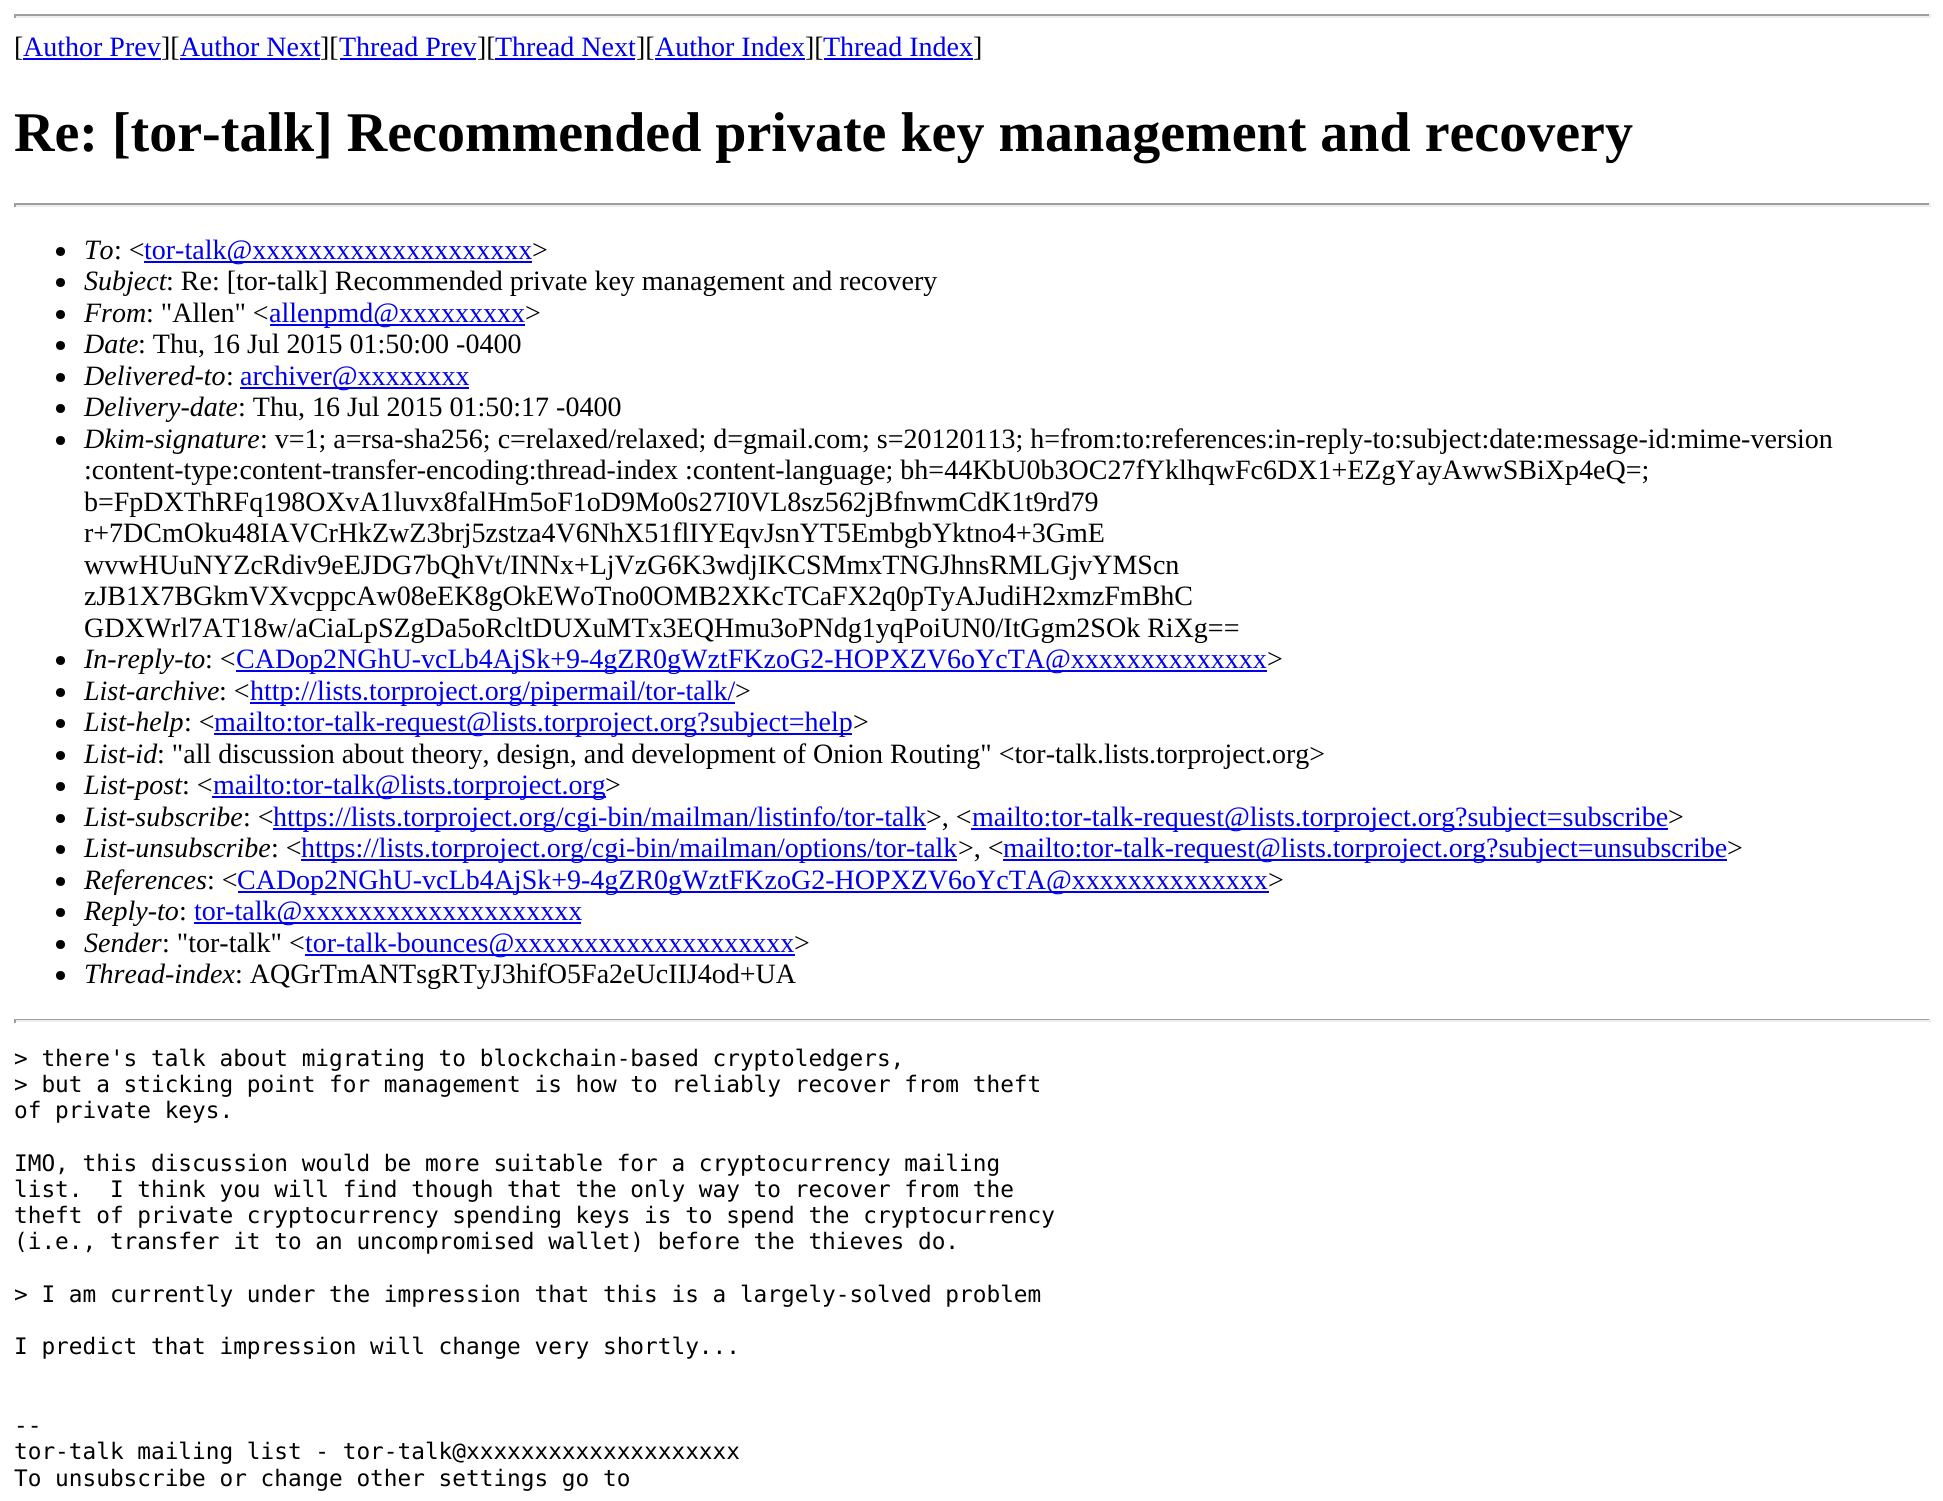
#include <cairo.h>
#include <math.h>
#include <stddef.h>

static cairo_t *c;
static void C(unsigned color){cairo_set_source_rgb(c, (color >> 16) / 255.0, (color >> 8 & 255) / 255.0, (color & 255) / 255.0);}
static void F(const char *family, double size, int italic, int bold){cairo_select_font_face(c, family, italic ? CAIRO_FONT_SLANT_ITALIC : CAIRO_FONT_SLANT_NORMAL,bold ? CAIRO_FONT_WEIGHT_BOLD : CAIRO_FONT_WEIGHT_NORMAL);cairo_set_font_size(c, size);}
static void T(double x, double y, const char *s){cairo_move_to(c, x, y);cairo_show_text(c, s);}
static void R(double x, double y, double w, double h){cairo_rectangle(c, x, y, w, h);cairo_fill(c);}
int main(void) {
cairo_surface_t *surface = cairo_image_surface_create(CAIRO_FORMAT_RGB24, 1943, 1501);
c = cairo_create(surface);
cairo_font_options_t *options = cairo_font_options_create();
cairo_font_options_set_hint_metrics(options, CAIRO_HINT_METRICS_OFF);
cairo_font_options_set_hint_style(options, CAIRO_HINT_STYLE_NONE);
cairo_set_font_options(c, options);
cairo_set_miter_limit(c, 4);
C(0xffffff);
cairo_paint(c);
C(0x9f9f9f);
R(14,14,1916,2);
C(0xeeeeee);
R(1929,14,2,4);
R(14,16,1916,2);
C(0x9f9f9f);
R(14,14,2,4);
F("Liberation Serif",28,0,0);
C(0x000000);
T(14,56,"[");
C(0x0000ee);
T(23,56,"Author Prev");
R(23,58,138,2);
C(0x000000);
T(161,56,"][");
C(0x0000ee);
T(180,56,"Author Next");
R(180,58,140,2);
C(0x000000);
T(320,56,"][");
C(0x0000ee);
T(339,56,"Thread Prev");
R(340,58,136,2);
C(0x000000);
T(477,56,"][");
C(0x0000ee);
T(495,56,"Thread Next");
R(495,58,140,2);
C(0x000000);
T(636,56,"][");
C(0x0000ee);
T(655,56,"Author Index");
R(655,58,150,2);
C(0x000000);
T(805,56,"][");
C(0x0000ee);
T(823,56,"Thread Index");
R(824,58,149,2);
C(0x000000);
T(973,56,"]");
F("Liberation Serif",56,0,1);
T(14,151,"Re: [tor-talk] Recommended private key management and recovery");
C(0x9f9f9f);
R(14,203,1916,2);
C(0xeeeeee);
R(1929,203,2,4);
R(14,205,1916,2);
C(0x9f9f9f);
R(14,203,2,4);
C(0x000000);
cairo_new_path(c);
cairo_arc(c,60.5,251.5,4.5,0,2 * M_PI);
cairo_fill(c);
F("Liberation Serif",28,1,0);
T(84,259,"To");
F("Liberation Serif",28,0,0);
T(114,259,": <");
C(0x0000ee);
R(144,261,388,2);
T(144,259,"tor-talk@xxxxxxxxxxxxxxxxxxxx");
C(0x000000);
T(532,259,">");
cairo_new_path(c);
cairo_arc(c,60.5,282.5,4.5,0,2 * M_PI);
cairo_fill(c);
F("Liberation Serif",28,1,0);
T(84,290,"Subject");
F("Liberation Serif",28,0,0);
T(166,290,": Re: [tor-talk] Recommended private key management and recovery");
cairo_new_path(c);
cairo_arc(c,60.5,314.5,4.5,0,2 * M_PI);
cairo_fill(c);
F("Liberation Serif",28,1,0);
T(84,322,"From");
F("Liberation Serif",28,0,0);
T(146,322,": \"Allen\" <");
C(0x0000ee);
R(270,324,255,2);
T(269,322,"allenpmd@xxxxxxxxx");
C(0x000000);
T(525,322,">");
cairo_new_path(c);
cairo_arc(c,60.5,345.5,4.5,0,2 * M_PI);
cairo_fill(c);
F("Liberation Serif",28,1,0);
T(84,353,"Date");
F("Liberation Serif",28,0,0);
T(138,353,": Thu, 16 Jul 2015 01:50:00 -0400");
cairo_new_path(c);
cairo_arc(c,60.5,377.5,4.5,0,2 * M_PI);
cairo_fill(c);
F("Liberation Serif",28,1,0);
T(84,385,"Delivered-to");
F("Liberation Serif",28,0,0);
T(226,385,":");
C(0x0000ee);
R(240,387,229,2);
T(240,385,"archiver@xxxxxxxx");
C(0x000000);
cairo_new_path(c);
cairo_arc(c,60.5,408.5,4.5,0,2 * M_PI);
cairo_fill(c);
F("Liberation Serif",28,1,0);
T(84,416,"Delivery-date");
F("Liberation Serif",28,0,0);
T(238,416,": Thu, 16 Jul 2015 01:50:17 -0400");
cairo_new_path(c);
cairo_arc(c,60.5,440.5,4.5,0,2 * M_PI);
cairo_fill(c);
F("Liberation Serif",28,1,0);
T(84,448,"Dkim-signature");
F("Liberation Serif",28,0,0);
T(260,448,": v=1; a=rsa-sha256; c=relaxed/relaxed; d=gmail.com; s=20120113; h=from:to:references:in-reply-to:subject:date:message-id:mime-version");
T(84,479,":content-type:content-transfer-encoding:thread-index :content-language; bh=44KbU0b3OC27fYklhqwFc6DX1+EZgYayAwwSBiXp4eQ=;");
T(84,511,"b=FpDXThRFq198OXvA1luvx8falHm5oF1oD9Mo0s27I0VL8sz562jBfnwmCdK1t9rd79");
T(84,542,"r+7DCmOku48IAVCrHkZwZ3brj5zstza4V6NhX51flIYEqvJsnYT5EmbgbYktno4+3GmE");
T(84,574,"wvwHUuNYZcRdiv9eEJDG7bQhVt/INNx+LjVzG6K3wdjIKCSMmxTNGJhnsRMLGjvYMScn");
T(84,605,"zJB1X7BGkmVXvcppcAw08eEK8gOkEWoTno0OMB2XKcTCaFX2q0pTyAJudiH2xmzFmBhC");
T(84,637,"GDXWrl7AT18w/aCiaLpSZgDa5oRcltDUXuMTx3EQHmu3oPNdg1yqPoiUN0/ItGgm2SOk RiXg==");
cairo_new_path(c);
cairo_arc(c,60.5,660.5,4.5,0,2 * M_PI);
cairo_fill(c);
F("Liberation Serif",28,1,0);
T(84,668,"In-reply-to");
F("Liberation Serif",28,0,0);
T(205,668,": <");
C(0x0000ee);
R(236,670,1031,2);
T(236,668,"CADop2NGhU-vcLb4AjSk+9-4gZR0gWztFKzoG2-HOPXZV6oYcTA@xxxxxxxxxxxxxx");
C(0x000000);
T(1267,668,">");
cairo_new_path(c);
cairo_arc(c,60.5,692.5,4.5,0,2 * M_PI);
cairo_fill(c);
F("Liberation Serif",28,1,0);
T(84,700,"List-archive");
F("Liberation Serif",28,0,0);
T(219,700,": <");
C(0x0000ee);
R(250,702,485,2);
T(250,700,"http://lists.torproject.org/pipermail/tor-talk/");
C(0x000000);
T(735,700,">");
cairo_new_path(c);
cairo_arc(c,60.5,723.5,4.5,0,2 * M_PI);
cairo_fill(c);
F("Liberation Serif",28,1,0);
T(84,731,"List-help");
F("Liberation Serif",28,0,0);
T(184,731,": <");
C(0x0000ee);
R(214,733,638,2);
T(214,731,"mailto:tor-talk-request@lists.torproject.org?subject=help");
C(0x000000);
T(853,731,">");
cairo_new_path(c);
cairo_arc(c,60.5,755.5,4.5,0,2 * M_PI);
cairo_fill(c);
F("Liberation Serif",28,1,0);
T(84,763,"List-id");
F("Liberation Serif",28,0,0);
T(157,763,": \"all discussion about theory, design, and development of Onion Routing\" <tor-talk.lists.torproject.org>");
cairo_new_path(c);
cairo_arc(c,60.5,786.5,4.5,0,2 * M_PI);
cairo_fill(c);
F("Liberation Serif",28,1,0);
T(84,794,"List-post");
F("Liberation Serif",28,0,0);
T(182,794,": <");
C(0x0000ee);
R(212,796,394,2);
T(213,794,"mailto:tor-talk@lists.torproject.org");
C(0x000000);
T(605,794,">");
cairo_new_path(c);
cairo_arc(c,60.5,818.5,4.5,0,2 * M_PI);
cairo_fill(c);
F("Liberation Serif",28,1,0);
T(84,826,"List-subscribe");
F("Liberation Serif",28,0,0);
T(243,826,": <");
C(0x0000ee);
R(273,828,653,2);
T(273,826,"https://lists.torproject.org/cgi-bin/mailman/listinfo/tor-talk");
C(0x000000);
T(926,826,">, <");
C(0x0000ee);
R(971,828,697,2);
T(972,826,"mailto:tor-talk-request@lists.torproject.org?subject=subscribe");
C(0x000000);
T(1668,826,">");
cairo_new_path(c);
cairo_arc(c,60.5,849.5,4.5,0,2 * M_PI);
cairo_fill(c);
F("Liberation Serif",28,1,0);
T(84,857,"List-unsubscribe");
F("Liberation Serif",28,0,0);
T(271,857,": <");
C(0x0000ee);
R(301,859,656,2);
T(301,857,"https://lists.torproject.org/cgi-bin/mailman/options/tor-talk");
C(0x000000);
T(958,857,">, <");
C(0x0000ee);
R(1003,859,724,2);
T(1003,857,"mailto:tor-talk-request@lists.torproject.org?subject=unsubscribe");
C(0x000000);
T(1727,857,">");
cairo_new_path(c);
cairo_arc(c,60.5,881.5,4.5,0,2 * M_PI);
cairo_fill(c);
F("Liberation Serif",28,1,0);
T(84,889,"References");
F("Liberation Serif",28,0,0);
T(207,889,": <");
C(0x0000ee);
R(238,891,1031,2);
T(237,889,"CADop2NGhU-vcLb4AjSk+9-4gZR0gWztFKzoG2-HOPXZV6oYcTA@xxxxxxxxxxxxxx");
C(0x000000);
T(1268,889,">");
cairo_new_path(c);
cairo_arc(c,60.5,912.5,4.5,0,2 * M_PI);
cairo_fill(c);
F("Liberation Serif",28,1,0);
T(84,920,"Reply-to");
F("Liberation Serif",28,0,0);
T(179,920,":");
C(0x0000ee);
R(194,922,387,2);
T(194,920,"tor-talk@xxxxxxxxxxxxxxxxxxxx");
C(0x000000);
cairo_new_path(c);
cairo_arc(c,60.5,944.5,4.5,0,2 * M_PI);
cairo_fill(c);
F("Liberation Serif",28,1,0);
T(84,952,"Sender");
F("Liberation Serif",28,0,0);
T(162,952,": \"tor-talk\" <");
C(0x0000ee);
R(305,954,490,2);
T(305,952,"tor-talk-bounces@xxxxxxxxxxxxxxxxxxxx");
C(0x000000);
T(794,952,">");
cairo_new_path(c);
cairo_arc(c,60.5,975.5,4.5,0,2 * M_PI);
cairo_fill(c);
F("Liberation Serif",28,1,0);
T(84,983,"Thread-index");
F("Liberation Serif",28,0,0);
T(235,983,": AQGrTmANTsgRTyJ3hifO5Fa2eUcIIJ4od+UA");
C(0x9f9f9f);
R(14,1019,1916,1);
C(0xeeeeee);
R(1929,1019,2,4);
R(14,1020,1916,2);
C(0x9f9f9f);
R(14,1019,2,4);
F("DejaVu Sans Mono",22.75,0,0);
C(0x000000);
T(14,1066,"> there's talk about migrating to blockchain-based cryptoledgers,");
T(14,1092,"> but a sticking point for management is how to reliably recover from theft");
T(14,1118,"of private keys.");
T(14,1171,"IMO, this discussion would be more suitable for a cryptocurrency mailing");
T(14,1197,"list.  I think you will find though that the only way to recover from the");
T(14,1223,"theft of private cryptocurrency spending keys is to spend the cryptocurrency");
T(14,1249,"(i.e., transfer it to an uncompromised wallet) before the thieves do.");
T(14,1302,"> I am currently under the impression that this is a largely-solved problem");
T(14,1354,"I predict that impression will change very shortly...");
T(14,1433,"--");
T(14,1459,"tor-talk mailing list - tor-talk@xxxxxxxxxxxxxxxxxxxx");
T(14,1486,"To unsubscribe or change other settings go to");
cairo_surface_write_to_png(surface, "o.png");
cairo_font_options_destroy(options);
cairo_destroy(c);
cairo_surface_destroy(surface);
return 0;
}
